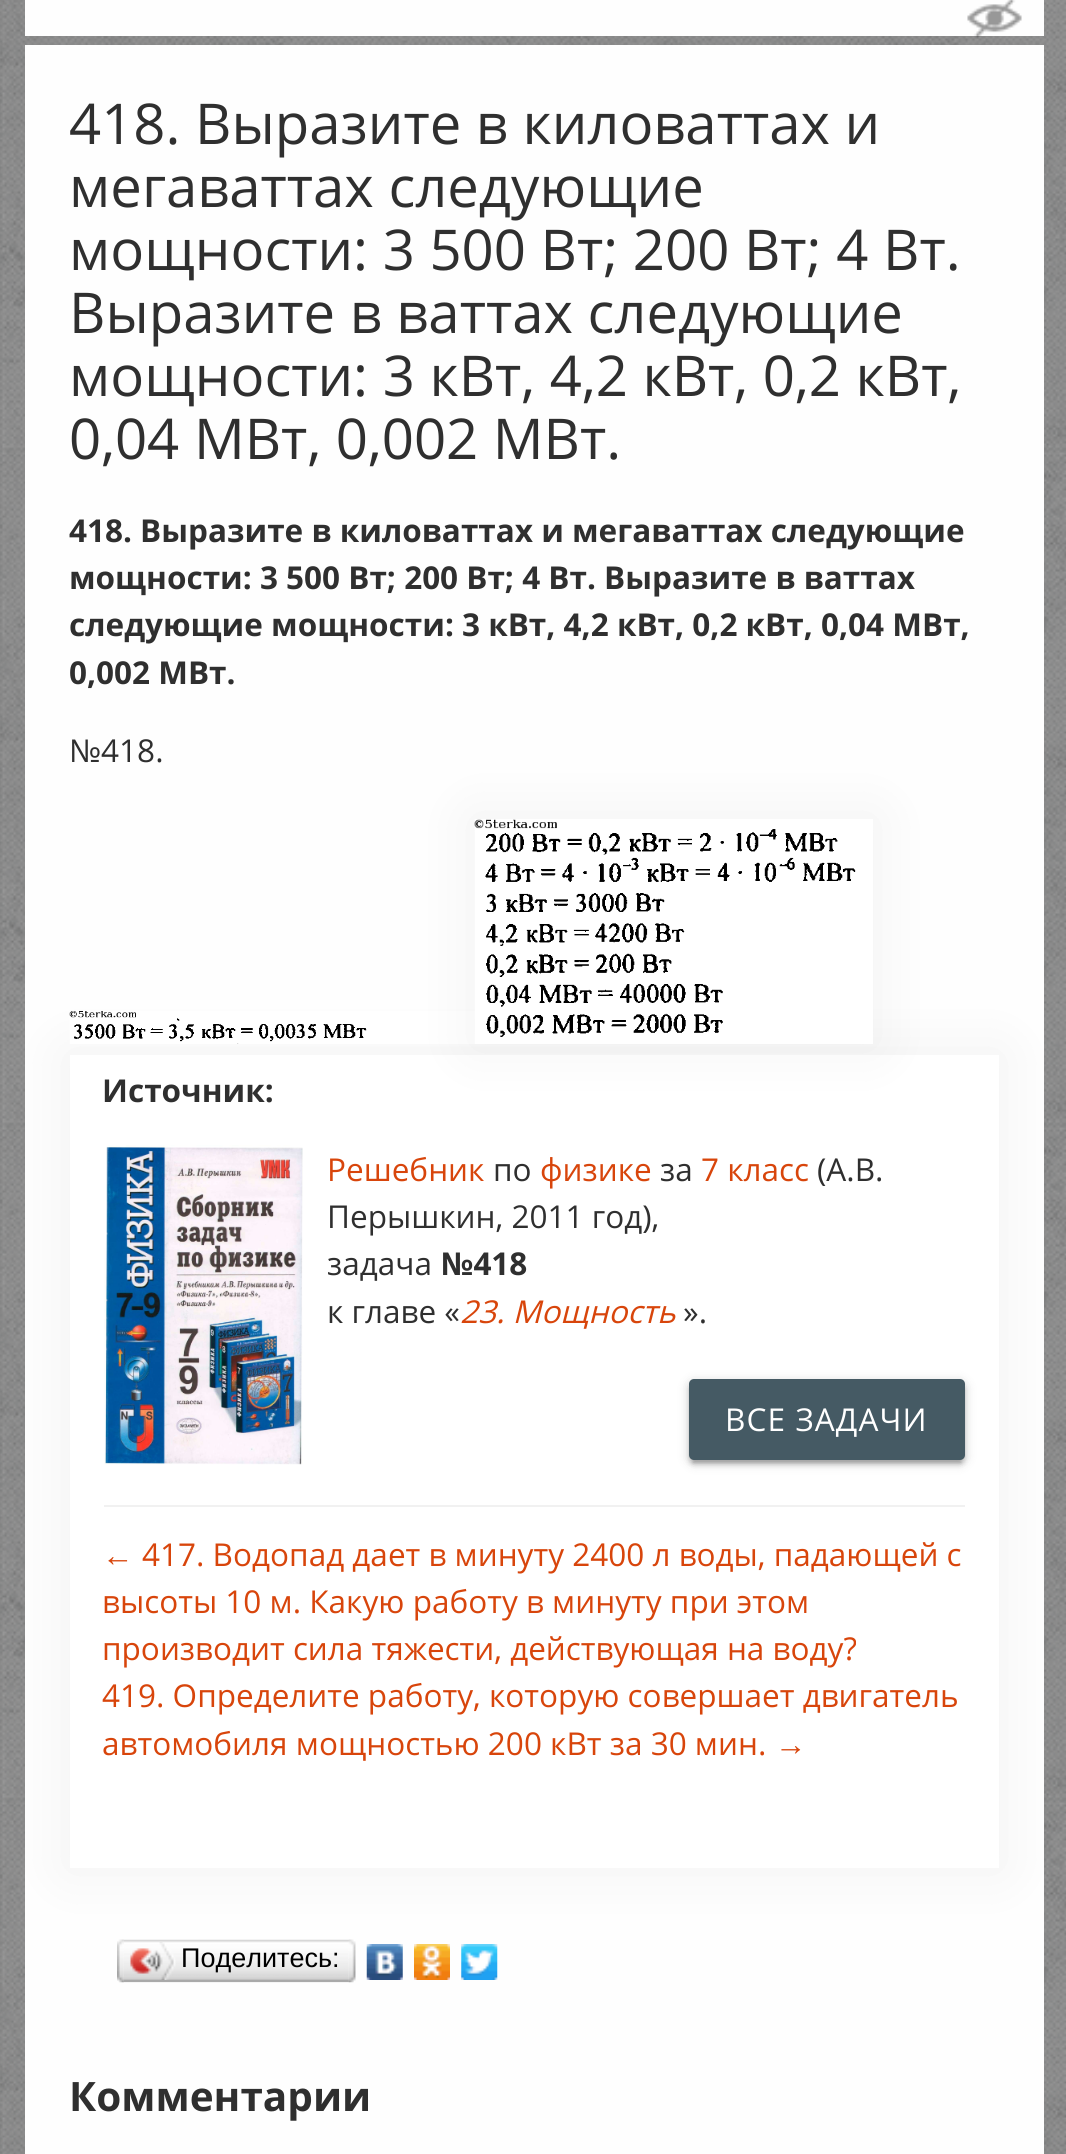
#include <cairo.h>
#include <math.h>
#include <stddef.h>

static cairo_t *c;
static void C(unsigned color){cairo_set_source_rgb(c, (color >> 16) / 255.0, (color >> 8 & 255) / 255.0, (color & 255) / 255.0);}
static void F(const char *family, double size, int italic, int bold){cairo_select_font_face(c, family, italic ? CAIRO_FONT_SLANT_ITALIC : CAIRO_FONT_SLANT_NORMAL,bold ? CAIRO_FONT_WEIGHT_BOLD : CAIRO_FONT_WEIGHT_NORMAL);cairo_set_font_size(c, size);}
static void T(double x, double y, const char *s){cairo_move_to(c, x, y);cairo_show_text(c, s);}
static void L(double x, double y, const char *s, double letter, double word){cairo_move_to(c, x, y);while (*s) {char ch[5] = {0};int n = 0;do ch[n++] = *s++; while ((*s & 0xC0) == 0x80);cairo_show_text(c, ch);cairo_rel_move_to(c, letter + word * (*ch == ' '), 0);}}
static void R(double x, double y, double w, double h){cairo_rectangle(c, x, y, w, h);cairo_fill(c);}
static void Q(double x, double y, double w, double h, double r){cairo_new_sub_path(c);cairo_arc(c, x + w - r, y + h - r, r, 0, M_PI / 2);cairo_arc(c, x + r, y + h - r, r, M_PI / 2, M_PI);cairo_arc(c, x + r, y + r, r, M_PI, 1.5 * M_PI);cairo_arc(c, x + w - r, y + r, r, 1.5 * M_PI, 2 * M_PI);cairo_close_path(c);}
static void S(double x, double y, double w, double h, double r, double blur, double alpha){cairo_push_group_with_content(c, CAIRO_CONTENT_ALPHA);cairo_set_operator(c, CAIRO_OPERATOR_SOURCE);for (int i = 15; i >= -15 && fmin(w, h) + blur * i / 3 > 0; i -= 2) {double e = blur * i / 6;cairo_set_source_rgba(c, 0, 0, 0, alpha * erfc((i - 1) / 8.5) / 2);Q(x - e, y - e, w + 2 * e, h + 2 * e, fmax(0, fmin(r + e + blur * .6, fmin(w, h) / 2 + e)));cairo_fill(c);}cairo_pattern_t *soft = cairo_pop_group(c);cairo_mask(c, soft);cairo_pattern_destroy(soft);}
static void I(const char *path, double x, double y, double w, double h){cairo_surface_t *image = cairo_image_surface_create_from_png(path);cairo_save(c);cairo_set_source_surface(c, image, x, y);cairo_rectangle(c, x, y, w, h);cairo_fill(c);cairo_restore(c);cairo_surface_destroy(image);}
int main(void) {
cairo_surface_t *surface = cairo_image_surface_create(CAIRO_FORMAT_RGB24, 1066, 2154);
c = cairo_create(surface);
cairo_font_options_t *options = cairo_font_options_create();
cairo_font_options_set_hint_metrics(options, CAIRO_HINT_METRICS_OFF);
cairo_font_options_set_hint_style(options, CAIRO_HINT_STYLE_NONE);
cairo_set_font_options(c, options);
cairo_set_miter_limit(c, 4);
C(0x666666);
cairo_paint(c);
I("1.png",0,0,1066,2154);
C(0xfefefe);
R(25,0,1019,36);
I("2.png",967,0,55,39);
R(25,45,1019,2109);
F("Open Sans",56.25,0,0);
C(0x2f2f2f);
T(69,144,"418. Выразите в киловаттах и");
T(69,207,"мегаваттах следующие");
T(69,270,"мощности: 3 500 Вт; 200 Вт; 4 Вт.");
T(69,333,"Выразите в ваттах следующие");
T(69,396,"мощности: 3 кВт, 4,2 кВт, 0,2 кВт,");
T(69,459,"0,04 МВт, 0,002 МВт.");
F("Open Sans",31.5,0,1);
T(69,542,"418. Выразите в киловаттах и мегаваттах следующие");
T(69,589,"мощности: 3 500 Вт; 200 Вт; 4 Вт. Выразите в ваттах");
T(69,636,"следующие мощности: 3 кВт, 4,2 кВт, 0,2 кВт, 0,04 МВт,");
T(69,684,"0,002 МВт.");
F("Open Sans",31.5,0,0);
T(69,762,"№418.");
C(0x000000);
S(65,1051,939,821,0,28,.05);
I("3.png",69,1011,406,33);
C(0xffffff);
R(70,1055,929,813);
C(0x000000);
S(470,815,408,234,0,28,.05);
I("4.png",474,819,399,225);
F("Open Sans",31.5,0,1);
C(0x2f2f2f);
T(102,1102,"Источник:");
I("5.png",104,1145,199,320);
F("Open Sans",31.5,0,0);
C(0xd8450b);
T(327,1181,"Решебник");
C(0x2f2f2f);
T(493,1181,"по");
C(0xd8450b);
T(540,1181,"физике");
C(0x2f2f2f);
T(660,1181,"за");
C(0xd8450b);
T(701,1181,"7 класс");
C(0x2f2f2f);
T(817,1181,"(А.В.");
T(327,1228,"Перышкин, 2011 год),");
T(327,1275,"задача");
F("Open Sans",31.5,0,1);
T(441,1275,"№418");
F("Open Sans",31.5,0,0);
T(327,1323,"к главе «");
F("Open Sans",31.5,1,0);
C(0xd8450b);
T(460,1323,"23. Мощность");
F("Open Sans",31.5,0,0);
C(0x2f2f2f);
T(683,1323,"».");
C(0x000000);
S(689,1382,276,81,5,5.5,.2);
S(693,1391,268,72,0,1,.12);
S(689,1384,276,81,5,2,.14);
C(0x455a64);
Q(689,1379,276,81,5);
cairo_fill(c);
C(0xffffff);
L(725,1431,"ВСЕ ЗАДАЧИ",1.1,0);
C(0xf1f1f1);
R(104,1505,861,2);
F("Liberation Sans",31.5,0,0);
C(0xd8450b);
T(102,1566,"←");
F("Open Sans",31.5,0,0);
T(142,1566,"417. Водопад дает в минуту 2400 л воды, падающей с");
T(102,1613,"высоты 10 м. Какую работу в минуту при этом");
T(102,1660,"производит сила тяжести, действующая на воду?");
T(102,1707,"419. Определите работу, которую совершает двигатель");
T(102,1755,"автомобиля мощностью 200 кВт за 30 мин.");
F("Liberation Sans",31.5,0,0);
T(775,1755,"→");
I("6.png",123,1939,226,44);
I("7.png",117,1939,7,44);
I("8.png",130,1942,46,38);
F("Liberation Sans",27,0,0);
C(0x000000);
T(181,1967,"Поделитесь:");
I("9.png",348,1939,8,44);
I("10.png",366,1944,37,36);
I("11.png",414,1944,36,36);
I("12.png",461,1944,37,36);
F("Open Sans",40.5,0,1);
C(0x2f2f2f);
T(69,2111,"Комментарии");
cairo_surface_write_to_png(surface, "o.png");
cairo_font_options_destroy(options);
cairo_destroy(c);
cairo_surface_destroy(surface);
return 0;
}
